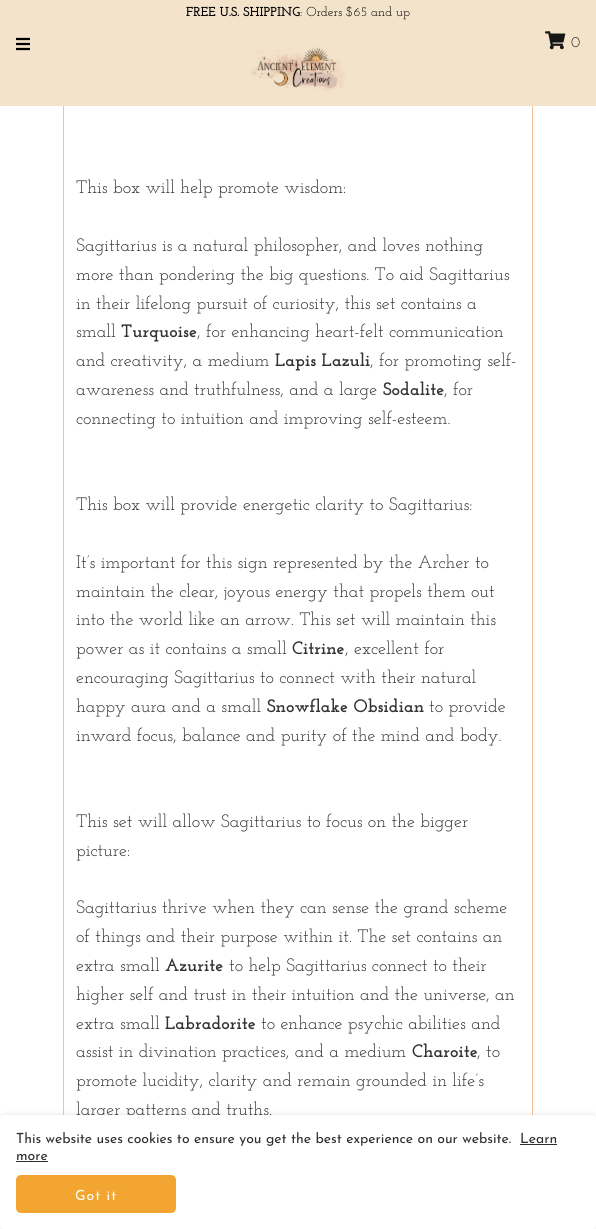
#include <cairo.h>
#include <math.h>
#include <stddef.h>

static cairo_t *c;
static void C(unsigned color){cairo_set_source_rgb(c, (color >> 16) / 255.0, (color >> 8 & 255) / 255.0, (color & 255) / 255.0);}
static void F(const char *family, double size, int italic, int bold){cairo_select_font_face(c, family, italic ? CAIRO_FONT_SLANT_ITALIC : CAIRO_FONT_SLANT_NORMAL,bold ? CAIRO_FONT_WEIGHT_BOLD : CAIRO_FONT_WEIGHT_NORMAL);cairo_set_font_size(c, size);}
static void T(double x, double y, const char *s){cairo_move_to(c, x, y);cairo_show_text(c, s);}
static void L(double x, double y, const char *s, double letter, double word){cairo_move_to(c, x, y);while (*s) {char ch[5] = {0};int n = 0;do ch[n++] = *s++; while ((*s & 0xC0) == 0x80);cairo_show_text(c, ch);cairo_rel_move_to(c, letter + word * (*ch == ' '), 0);}}
static void R(double x, double y, double w, double h){cairo_rectangle(c, x, y, w, h);cairo_fill(c);}
static void Q(double x, double y, double w, double h, double r){cairo_new_sub_path(c);cairo_arc(c, x + w - r, y + h - r, r, 0, M_PI / 2);cairo_arc(c, x + r, y + h - r, r, M_PI / 2, M_PI);cairo_arc(c, x + r, y + r, r, M_PI, 1.5 * M_PI);cairo_arc(c, x + w - r, y + r, r, 1.5 * M_PI, 2 * M_PI);cairo_close_path(c);}
static void S(double x, double y, double w, double h, double r, double blur, double alpha){cairo_push_group_with_content(c, CAIRO_CONTENT_ALPHA);cairo_set_operator(c, CAIRO_OPERATOR_SOURCE);for (int i = 15; i >= -15 && fmin(w, h) + blur * i / 3 > 0; i -= 2) {double e = blur * i / 6;cairo_set_source_rgba(c, 0, 0, 0, alpha * erfc((i - 1) / 8.5) / 2);Q(x - e, y - e, w + 2 * e, h + 2 * e, fmax(0, fmin(r + e + blur * .6, fmin(w, h) / 2 + e)));cairo_fill(c);}cairo_pattern_t *soft = cairo_pop_group(c);cairo_mask(c, soft);cairo_pattern_destroy(soft);}
static void I(const char *path, double x, double y, double w, double h){cairo_surface_t *image = cairo_image_surface_create_from_png(path);cairo_save(c);cairo_set_source_surface(c, image, x, y);cairo_rectangle(c, x, y, w, h);cairo_fill(c);cairo_restore(c);cairo_surface_destroy(image);}
int main(void) {
cairo_surface_t *surface = cairo_image_surface_create(CAIRO_FORMAT_RGB24, 596, 1229);
c = cairo_create(surface);
cairo_font_options_t *options = cairo_font_options_create();
cairo_font_options_set_hint_metrics(options, CAIRO_HINT_METRICS_OFF);
cairo_font_options_set_hint_style(options, CAIRO_HINT_STYLE_NONE);
cairo_set_font_options(c, options);
cairo_set_miter_limit(c, 4);
C(0xffffff);
cairo_paint(c);
cairo_rectangle(c,63.5,-.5,469,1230);
C(0xf8c096);
cairo_set_line_width(c,1);
cairo_stroke(c);
C(0xf4e3cb);
R(0,0,596,106);
F("Josefin Slab",13,0,1);
C(0x000000);
T(186,16,"FREE U.S. SHIPPING");
F("Josefin Slab",13,0,0);
T(300,16,": Orders $65 and up");
I("1.png",16,37,14,14);
I("2.png",250,43,95,50);
I("3.png",545,31,21,19);
F("Josefin Slab",15,0,0);
C(0x161616);
T(571,47,"0");
F("Josefin Slab",18,0,0);
C(0x333333);
T(76,193,"This box will help promote wisdom:");
T(76,251,"Sagittarius is a natural philosopher, and loves nothing");
T(76,280,"more than pondering the big questions. To aid Sagittarius");
T(76,309,"in their lifelong pursuit of curiosity, this set contains a");
T(76,337,"small");
F("Josefin Slab",18,0,1);
T(121,337,"Turquoise");
F("Josefin Slab",18,0,0);
T(197,337,", for enhancing heart-felt communication");
T(76,366,"and creativity, a medium");
F("Josefin Slab",18,0,1);
T(275,366,"Lapis Lazuli");
F("Josefin Slab",18,0,0);
T(370,366,", for promoting self-");
T(76,395,"awareness and truthfulness, and a large");
F("Josefin Slab",18,0,1);
T(383,395,"Sodalite");
F("Josefin Slab",18,0,0);
T(444,395,", for");
T(76,424,"connecting to intuition and improving self-esteem.");
T(76,510,"This box will provide energetic clarity to Sagittarius:");
T(76,568,"It’s important for this sign represented by the Archer to");
T(76,597,"maintain the clear, joyous energy that propels them out");
T(76,625,"into the world like an arrow. This set will maintain this");
T(76,654,"power as it contains a small");
F("Josefin Slab",18,0,1);
T(292,654,"Citrine");
F("Josefin Slab",18,0,0);
T(345,654,", excellent for");
T(76,683,"encouraging Sagittarius to connect with their natural");
T(76,712,"happy aura and a small");
F("Josefin Slab",18,0,1);
T(267,712,"Snowflake Obsidian");
F("Josefin Slab",18,0,0);
T(429,712,"to provide");
T(76,741,"inward focus, balance and purity of the mind and body.");
T(76,827,"This set will allow Sagittarius to focus on the bigger");
T(76,856,"picture:");
T(76,913,"Sagittarius thrive when they can sense the grand scheme");
T(76,942,"of things and their purpose within it. The set contains an");
T(76,971,"extra small");
F("Josefin Slab",18,0,1);
T(165,971,"Azurite");
F("Josefin Slab",18,0,0);
T(229,971,"to help Sagittarius connect to their");
T(76,1000,"higher self and trust in their intuition and the universe, an");
T(76,1029,"extra small");
F("Josefin Slab",18,0,1);
T(165,1029,"Labradorite");
F("Josefin Slab",18,0,0);
T(261,1029,"to enhance psychic abilities and");
T(76,1057,"assist in divination practices, and a medium");
F("Josefin Slab",18,0,1);
T(412,1057,"Charoite");
F("Josefin Slab",18,0,0);
T(477,1057,", to");
T(76,1086,"promote lucidity, clarity and remain grounded in life’s");
T(76,1115,"larger patterns and truths.");
C(0xffffff);
R(63,1115,470,114);
cairo_save(c);
cairo_set_fill_rule(c,CAIRO_FILL_RULE_EVEN_ODD);
cairo_new_path(c);
cairo_move_to(c,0,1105);
cairo_line_to(c,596,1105);
cairo_line_to(c,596,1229);
cairo_line_to(c,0,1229);
cairo_close_path(c);
cairo_move_to(c,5,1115);
cairo_line_to(c,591,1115);
cairo_curve_to(c,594,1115,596,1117,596,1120);
cairo_line_to(c,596,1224);
cairo_curve_to(c,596,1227,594,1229,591,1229);
cairo_line_to(c,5,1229);
cairo_curve_to(c,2,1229,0,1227,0,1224);
cairo_line_to(c,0,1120);
cairo_curve_to(c,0,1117,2,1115,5,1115);
cairo_close_path(c);
cairo_clip(c);
C(0x000000);
S(0,1115,596,114,5,3,.12);
cairo_restore(c);
F("Josefin Sans Thin",14,0,0);
C(0x2d2d2d);
T(16,1143,"This website uses cookies to ensure you get the best experience on our website.");
T(520,1143,"Learn");
R(520,1144,37,1);
T(16,1160,"more");
R(16,1161,32,1);
C(0xf2a531);
Q(16,1175,160,38,5);
cairo_fill(c);
C(0xffffff);
L(75,1200,"Got it",1,0);
cairo_surface_write_to_png(surface, "o.png");
cairo_font_options_destroy(options);
cairo_destroy(c);
cairo_surface_destroy(surface);
return 0;
}
